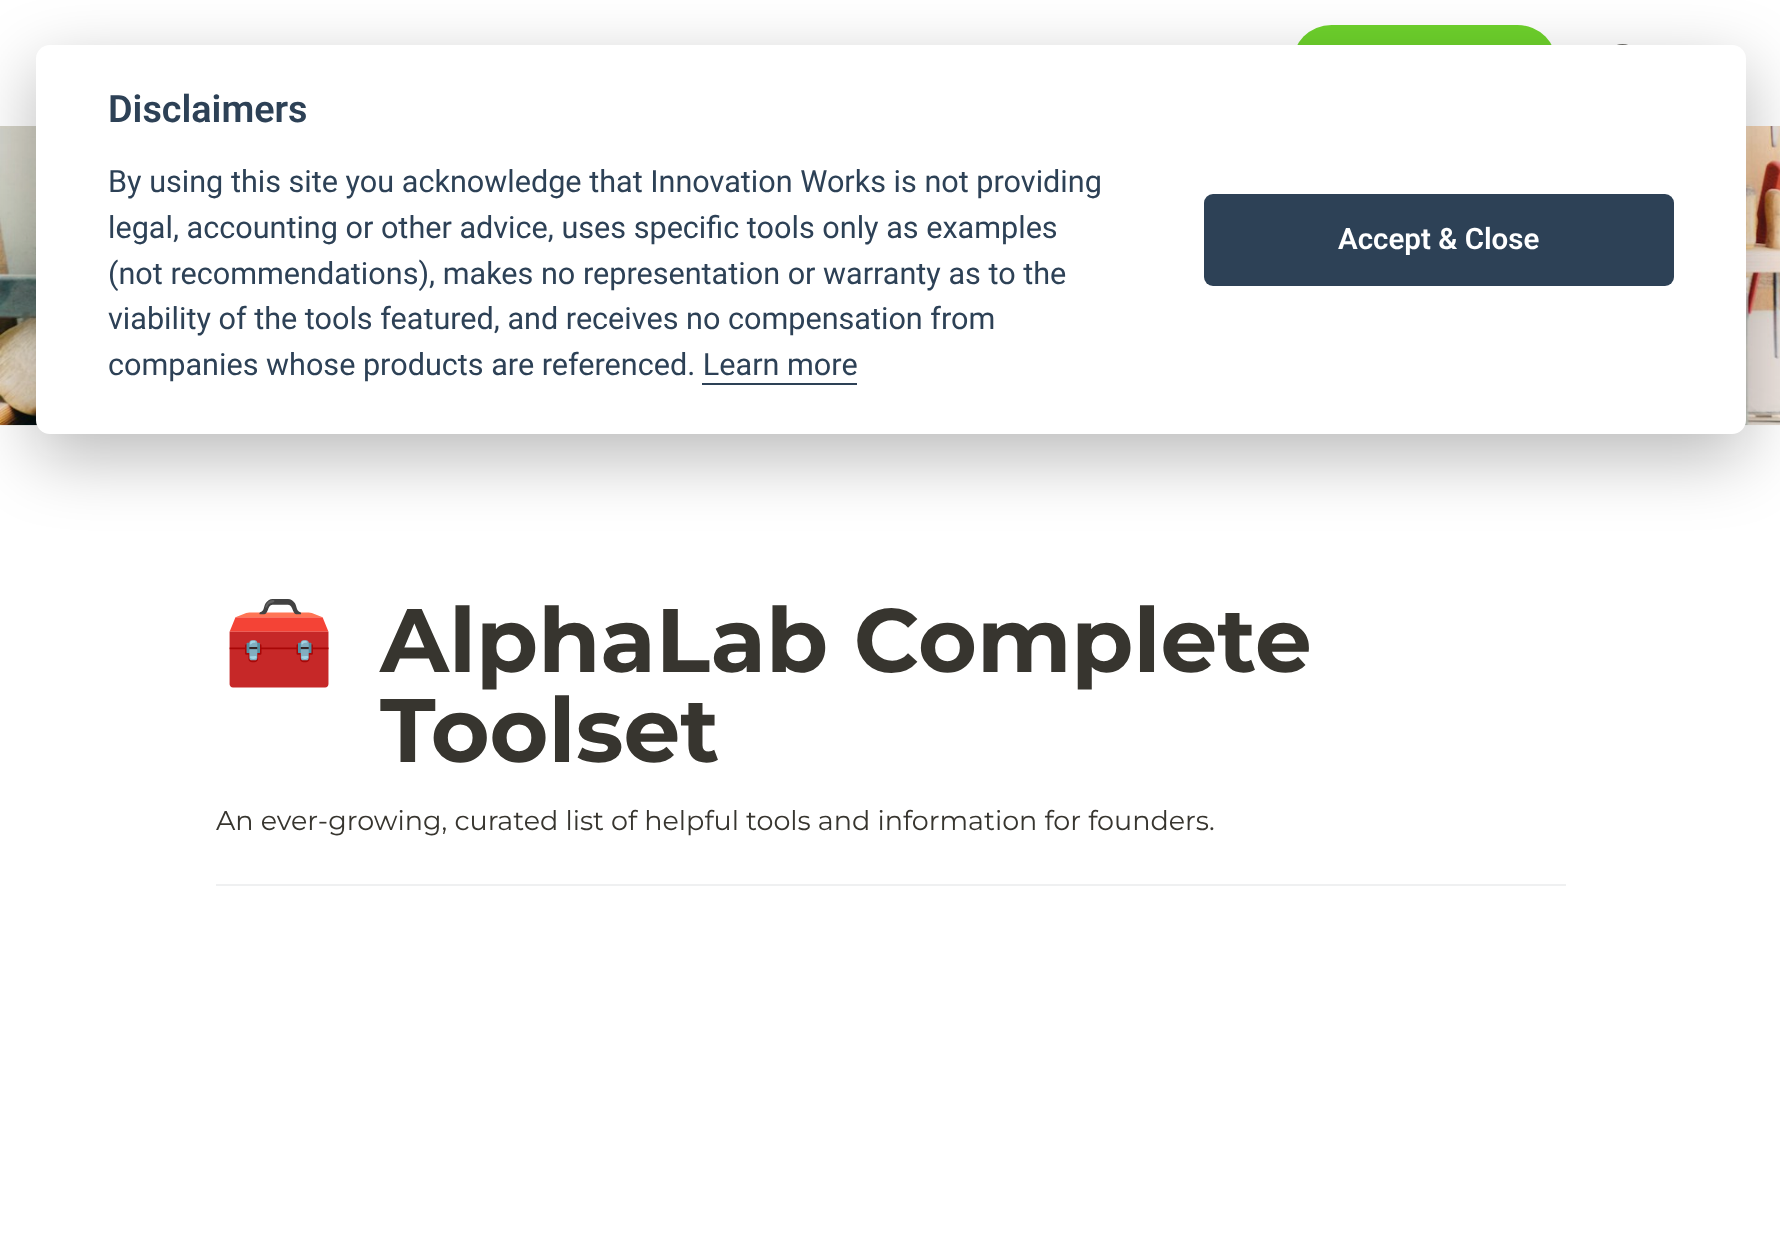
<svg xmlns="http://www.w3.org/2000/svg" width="1780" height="1244">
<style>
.a{font:600 37.75px Roboto;fill:#2d4156}
.b{font:30.6px Roboto;fill:#2d4156}
.c{font:600 29.5px Roboto;fill:#fff}
.d{font:90px Noto Color Emoji;fill:#37352f}
.e{font:bold 90px Montserrat;fill:#37352f}
.f{font:27px Montserrat;fill:#37352f}
</style>
<rect width="100%" height="100%" fill="#fff"/>
<rect fill="#6ed22c" x="1292" y="25" width="265" height="79" rx="39.5"/>
<circle fill="none" stroke="#73726d" stroke-width="3.8" cx="1622.5" cy="61" r="15"/>
<image href="1.png" x="0" y="126" width="1780" height="300"/>
<rect fill="#02020347" filter="blur(34px)" x="36" y="68" width="1710" height="389" rx="14"/>
<rect fill="#fff" x="36" y="45" width="1710" height="389" rx="14"/>
<path fill="#2d4156" d="M702 383h155v2H702z"/>
<rect fill="#2d4156" x="1204" y="194" width="470" height="92" rx="9"/>
<path fill="#eff0f1" d="M216 884h1350v2H216z"/>
<text class="a" x="108" y="122">Disclaimers</text>
<text class="b" x="108" y="192">By using this site you acknowledge that Innovation Works is not providing</text>
<text class="b" x="108" y="238">legal, accounting or other advice, uses specific tools only as examples</text>
<text class="b" x="108" y="284">(not recommendations), makes no representation or warranty as to the</text>
<text class="b" x="108" y="329">viability of the tools featured, and receives no compensation from</text>
<text class="b" x="108" y="375">companies whose products are referenced. Learn more</text>
<text class="c" x="1338" y="249">Accept &amp; Close</text>
<text class="d" x="223" y="674">🧰</text>
<text class="e" x="380" y="672">AlphaLab Complete</text>
<text class="e" x="380" y="762">Toolset</text>
<text class="f" x="216" y="830">An ever-growing, curated list of helpful tools and information for founders.</text>
</svg>
